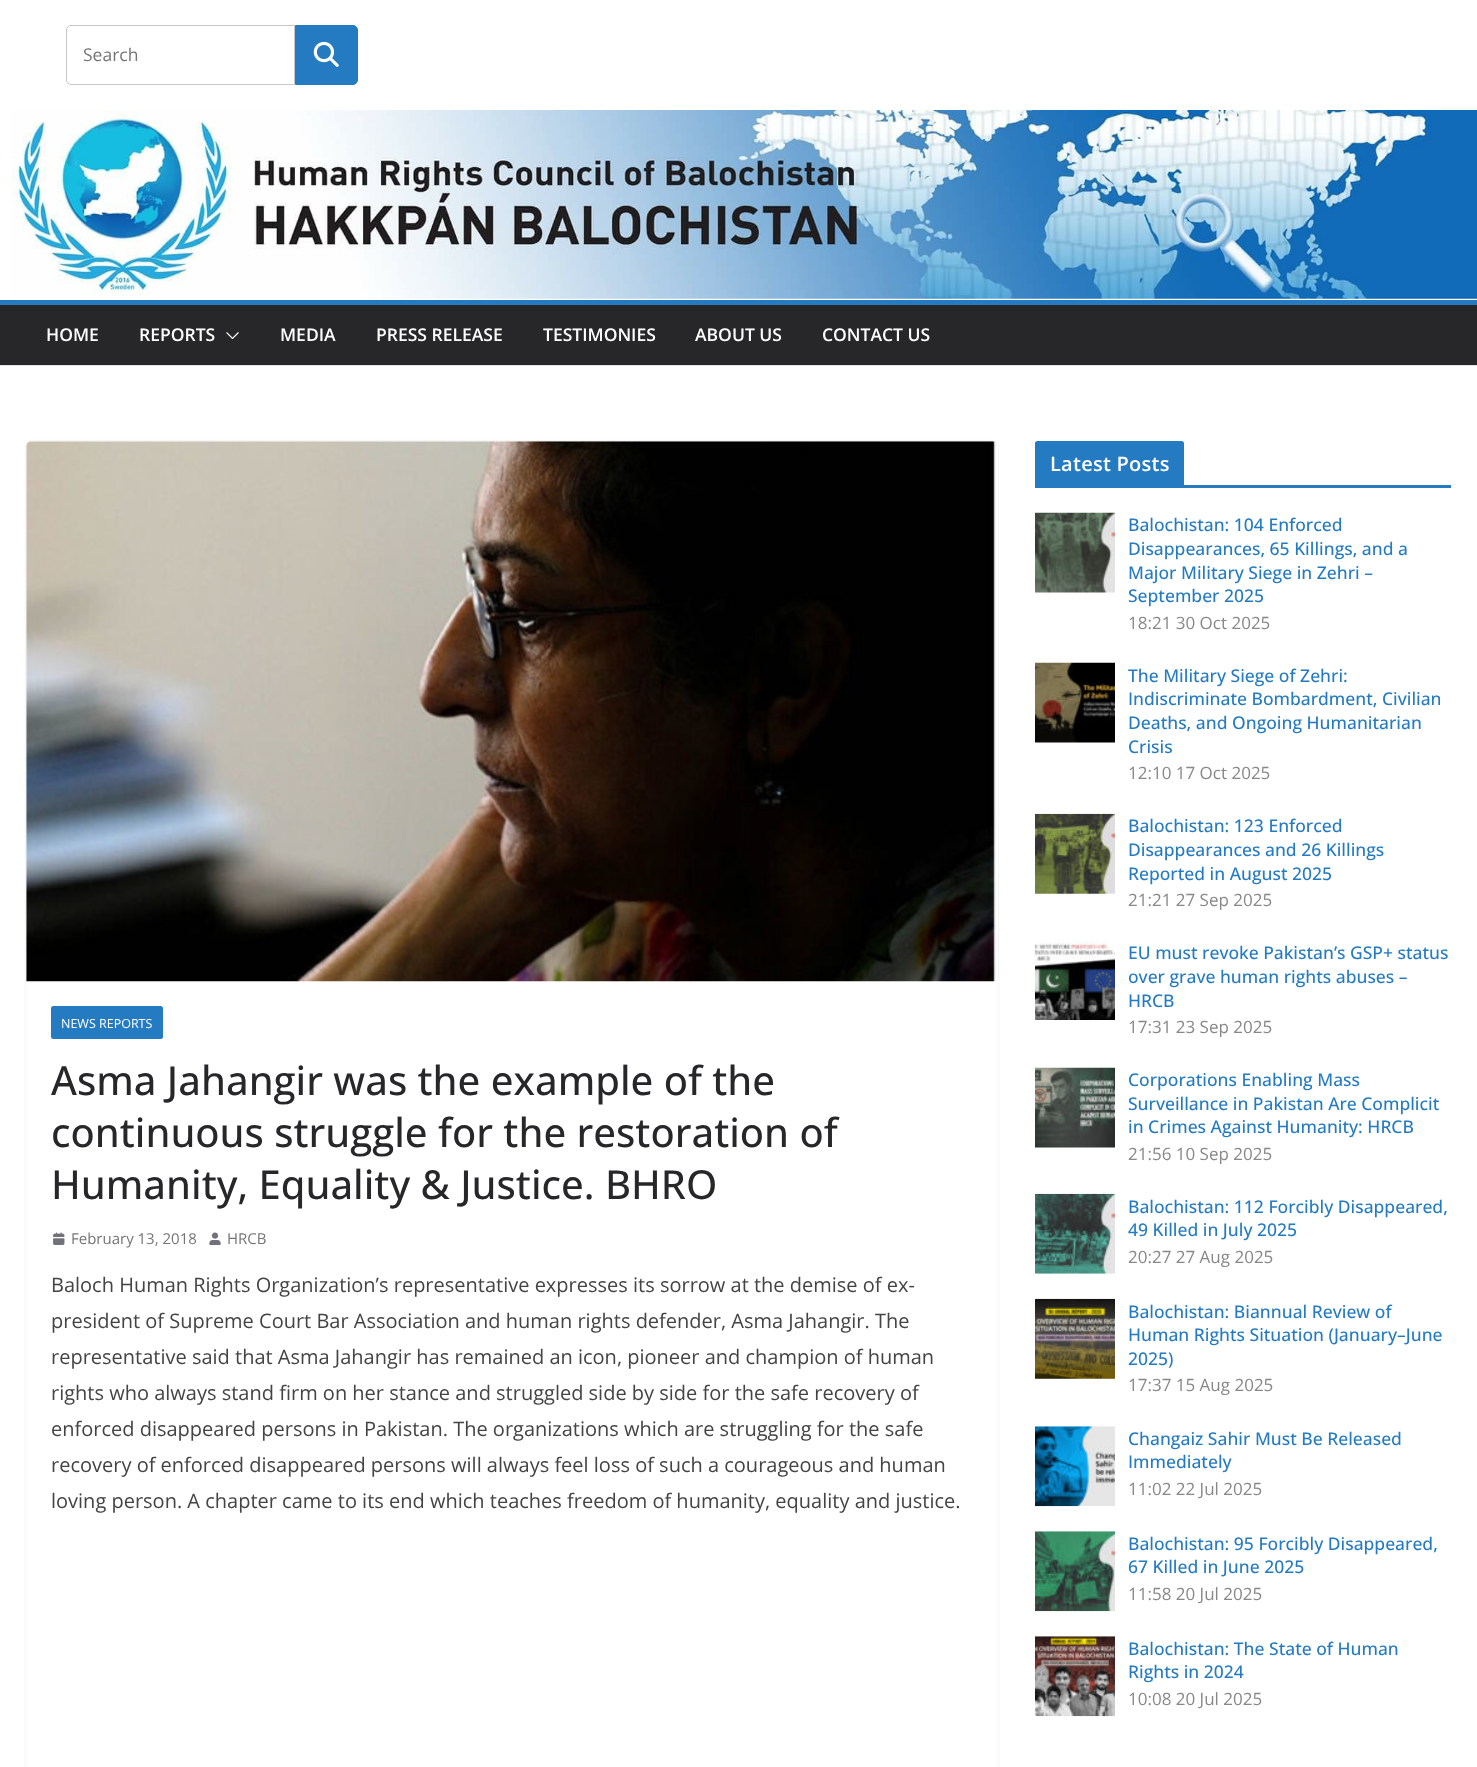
<svg xmlns="http://www.w3.org/2000/svg" width="1477" height="1767">
<style>
.a{font:17.5px Open Sans;fill:#757575}
.b{font:600 17.5px Open Sans;fill:#fff}
.c{font:12.5px Open Sans;fill:#fff}
.d{font:500 40px Open Sans;fill:#27272a}
.e{font:15px Open Sans;fill:#757575}
.f{font:20px Open Sans;fill:#444}
.g{font:600 20px Open Sans;letter-spacing:0.25px;fill:#fff}
.h{font:500 17.5px Open Sans;fill:#257bc1}
.i{font:17px Open Sans;fill:#888}
</style>
<defs>
<clipPath id="clip1"><path d="M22 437h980v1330h-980zm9 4h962c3 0 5 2 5 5v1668c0 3-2 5-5 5h-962c-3 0-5-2-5-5v-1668c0-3 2-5 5-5z" clip-rule="evenodd"/></clipPath>
</defs>
<rect width="100%" height="100%" fill="#fff"/>
<path fill="#e4e4e7" d="M0 365h1477v1H0z"/>
<path fill="none" stroke="#c7c7c7" d="M71 25.5h223.5v59h-223.5c-2.5 0-4.5-2-4.5-4.5v-50c0-2.5 2-4.5 4.5-4.5z"/>
<path fill="#257bc1" stroke="#257bc1" d="M295.5 25.5h57.5c2.5 0 4.5 2 4.5 4.5v50c0 2.5-2 4.5-4.5 4.5h-57.5z"/>
<image href="1.png" x="313" y="41" width="26" height="26"/>
<image href="2.png" x="11" y="110" width="1466" height="189"/>
<path fill="#27272a" d="M0 305h1477v60H0z"/>
<path fill="#257bc1" d="M0 300h1477v5H0z"/>
<image href="3.png" x="226" y="332" width="13" height="7"/>
<g clip-path="url(#clip1)">
<rect fill="#e4e4e7" filter="blur(1px)" x="26" y="441" width="972" height="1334" rx="5"/>
</g>
<image href="4.png" x="26" y="441" width="970" height="541"/>
<rect fill="#257bc1" x="51" y="1006" width="112" height="33" rx="2.5"/>
<image href="5.png" x="53" y="1232" width="12" height="13"/>
<image href="6.png" x="209" y="1232" width="12" height="13"/>
<path fill="#257bc1" d="M1035 485h416v3H1035z"/>
<path fill="#257bc1" d="M1037.5 441h144c1.5 0 2.5 1 2.5 2.5v41.5h-149v-41.5c0-1.5 1-2.5 2.5-2.5z"/>
<image href="7.png" x="1035" y="512" width="80" height="81"/>
<image href="8.png" x="1035" y="662" width="80" height="81"/>
<image href="9.png" x="1035" y="813" width="80" height="81"/>
<image href="10.png" x="1035" y="940" width="80" height="80"/>
<image href="11.png" x="1035" y="1067" width="80" height="81"/>
<image href="12.png" x="1035" y="1193" width="80" height="81"/>
<image href="13.png" x="1035" y="1298" width="80" height="81"/>
<image href="14.png" x="1035" y="1426" width="80" height="81"/>
<image href="15.png" x="1035" y="1531" width="80" height="81"/>
<image href="16.png" x="1035" y="1636" width="80" height="81"/>
<text class="a" x="83" y="61">Search</text>
<text class="b" x="46" y="341">HOME</text>
<text class="b" x="139" y="341">REPORTS</text>
<text class="b" x="280" y="341">MEDIA</text>
<text class="b" x="376" y="341">PRESS RELEASE</text>
<text class="b" x="543" y="341">TESTIMONIES</text>
<text class="b" x="695" y="341">ABOUT US</text>
<text class="b" x="822" y="341">CONTACT US</text>
<text class="c" x="61" y="1028">NEWS REPORTS</text>
<text class="d" x="51" y="1095">Asma Jahangir was the example of the</text>
<text class="d" x="51" y="1147">continuous struggle for the restoration of</text>
<text class="d" x="51" y="1199">Humanity, Equality &amp; Justice. BHRO</text>
<text class="e" x="71" y="1244">February 13, 2018</text>
<text class="e" x="227" y="1244">HRCB</text>
<text class="f" x="51" y="1292">Baloch Human Rights Organization’s representative expresses its sorrow at the demise of ex-</text>
<text class="f" x="51" y="1328">president of Supreme Court Bar Association and human rights defender, Asma Jahangir. The</text>
<text class="f" x="51" y="1364">representative said that Asma Jahangir has remained an icon, pioneer and champion of human</text>
<text class="f" x="51" y="1400">rights who always stand firm on her stance and struggled side by side for the safe recovery of</text>
<text class="f" x="51" y="1436">enforced disappeared persons in Pakistan. The organizations which are struggling for the safe</text>
<text class="f" x="51" y="1472">recovery of enforced disappeared persons will always feel loss of such a courageous and human</text>
<text class="f" x="51" y="1508">loving person. A chapter came to its end which teaches freedom of humanity, equality and justice.</text>
<text class="g" x="1050" y="471">Latest Posts</text>
<text class="h" x="1128" y="531">Balochistan: 104 Enforced</text>
<text class="h" x="1128" y="555">Disappearances, 65 Killings, and a</text>
<text class="h" x="1128" y="579">Major Military Siege in Zehri –</text>
<text class="h" x="1128" y="602">September 2025</text>
<text class="i" x="1128" y="629">18:21 30 Oct 2025</text>
<text class="h" x="1128" y="682">The Military Siege of Zehri:</text>
<text class="h" x="1128" y="705">Indiscriminate Bombardment, Civilian</text>
<text class="h" x="1128" y="729">Deaths, and Ongoing Humanitarian</text>
<text class="h" x="1128" y="753">Crisis</text>
<text class="i" x="1128" y="779">12:10 17 Oct 2025</text>
<text class="h" x="1128" y="832">Balochistan: 123 Enforced</text>
<text class="h" x="1128" y="856">Disappearances and 26 Killings</text>
<text class="h" x="1128" y="880">Reported in August 2025</text>
<text class="i" x="1128" y="906">21:21 27 Sep 2025</text>
<text class="h" x="1128" y="959">EU must revoke Pakistan’s GSP+ status</text>
<text class="h" x="1128" y="983">over grave human rights abuses –</text>
<text class="h" x="1128" y="1007">HRCB</text>
<text class="i" x="1128" y="1033">17:31 23 Sep 2025</text>
<text class="h" x="1128" y="1086">Corporations Enabling Mass</text>
<text class="h" x="1128" y="1110">Surveillance in Pakistan Are Complicit</text>
<text class="h" x="1128" y="1133">in Crimes Against Humanity: HRCB</text>
<text class="i" x="1128" y="1160">21:56 10 Sep 2025</text>
<text class="h" x="1128" y="1213">Balochistan: 112 Forcibly Disappeared,</text>
<text class="h" x="1128" y="1236">49 Killed in July 2025</text>
<text class="i" x="1128" y="1263">20:27 27 Aug 2025</text>
<text class="h" x="1128" y="1318">Balochistan: Biannual Review of</text>
<text class="h" x="1128" y="1341">Human Rights Situation (January–June</text>
<text class="h" x="1128" y="1365">2025)</text>
<text class="i" x="1128" y="1391">17:37 15 Aug 2025</text>
<text class="h" x="1128" y="1445">Changaiz Sahir Must Be Released</text>
<text class="h" x="1128" y="1468">Immediately</text>
<text class="i" x="1128" y="1495">11:02 22 Jul 2025</text>
<text class="h" x="1128" y="1550">Balochistan: 95 Forcibly Disappeared,</text>
<text class="h" x="1128" y="1573">67 Killed in June 2025</text>
<text class="i" x="1128" y="1600">11:58 20 Jul 2025</text>
<text class="h" x="1128" y="1655">Balochistan: The State of Human</text>
<text class="h" x="1128" y="1678">Rights in 2024</text>
<text class="i" x="1128" y="1705">10:08 20 Jul 2025</text>
</svg>
